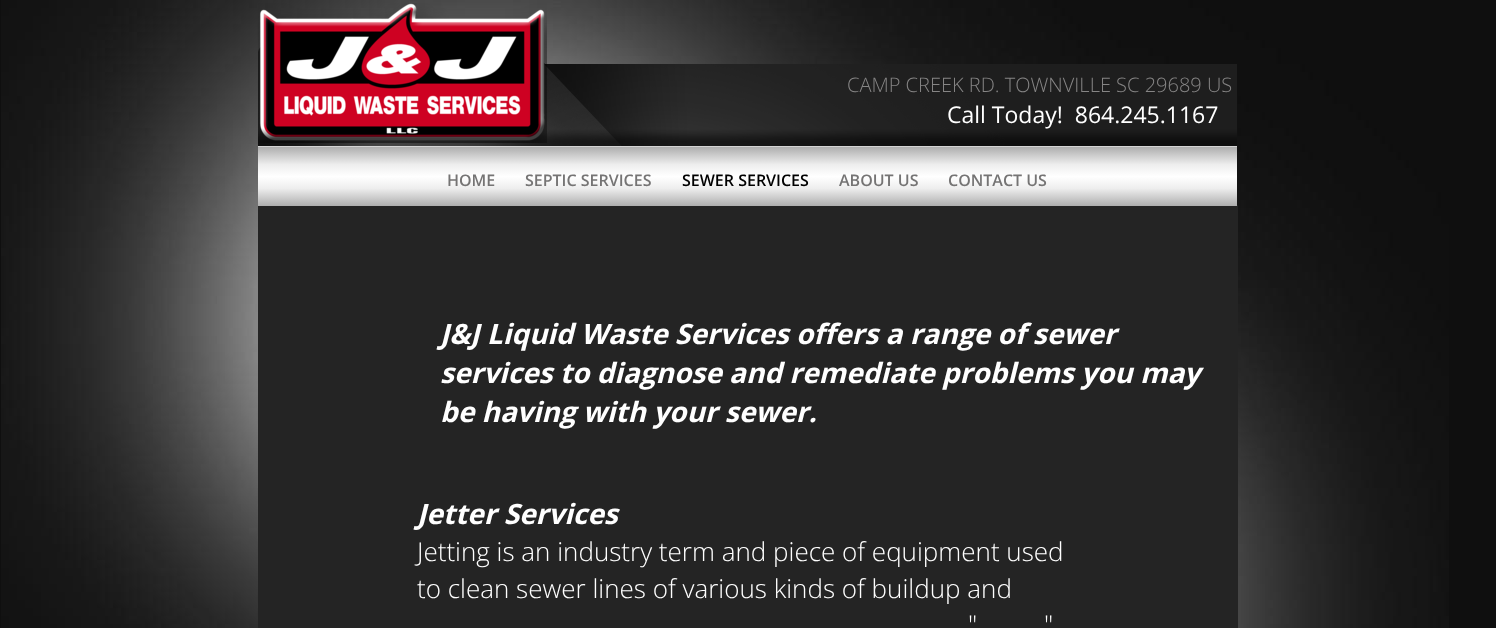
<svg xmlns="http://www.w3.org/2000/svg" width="1496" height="628">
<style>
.a{font:300 20px Open Sans;fill:#868585}
.b{font:23px Open Sans;fill:#fff}
.c{font:600 16px Open Sans;fill:#757474}
.d{font:600 16px Open Sans;fill:#000}
.e{font:italic bold 28px Open Sans;fill:#fff}
.f{font:300 26px Open Sans;fill:#fff}
</style>
<defs>
<linearGradient id="g1" gradientUnits="userSpaceOnUse" x1="748" y1="147" x2="748" y2="206"><stop offset="0" stop-color="#aeaeae"/><stop offset="0.3" stop-color="#eee"/><stop offset="0.5" stop-color="#fff"/><stop offset="0.7" stop-color="#eee"/><stop offset="1" stop-color="#aeaeae"/></linearGradient>
</defs>
<rect width="100%" height="100%" fill="#0f0f0f"/>
<image href="1.png" x="1" y="0" width="1448" height="628"/>
<path fill="#242424" d="M258 205h980v423H258z"/>
<image href="3.png" x="258" y="47" width="979" height="99"/>
<image href="2.png" x="258" y="3" width="289" height="140"/>
<path fill="url(#g1)" d="M258 147h979v59H258z"/>
<path fill="#d4d4d4" d="M258 146h979v1H258z"/>
<text class="a" x="847" y="92">CAMP CREEK RD. TOWNVILLE SC 29689 US</text>
<text class="b" xml:space="preserve" x="947" y="123">Call Today!  864.245.1167</text>
<text class="c" x="447" y="186">HOME</text>
<text class="c" x="525" y="186">SEPTIC SERVICES</text>
<text class="d" x="682" y="186">SEWER SERVICES</text>
<text class="c" x="839" y="186">ABOUT US</text>
<text class="c" x="948" y="186">CONTACT US</text>
<text class="e" x="440" y="344">J&amp;J Liquid Waste Services offers a range of sewer</text>
<text class="e" x="440" y="383">services to diagnose and remediate problems you may</text>
<text class="e" x="440" y="422">be having with your sewer.</text>
<text class="e" x="417" y="524">Jetter Services</text>
<text class="f" x="417" y="561">Jetting is an industry term and piece of equipment used</text>
<text class="f" x="417" y="598">to clean sewer lines of various kinds of buildup and</text>
<text class="f" x="968" y="634">"</text>
<text class="f" x="1044" y="634">"</text>
</svg>
